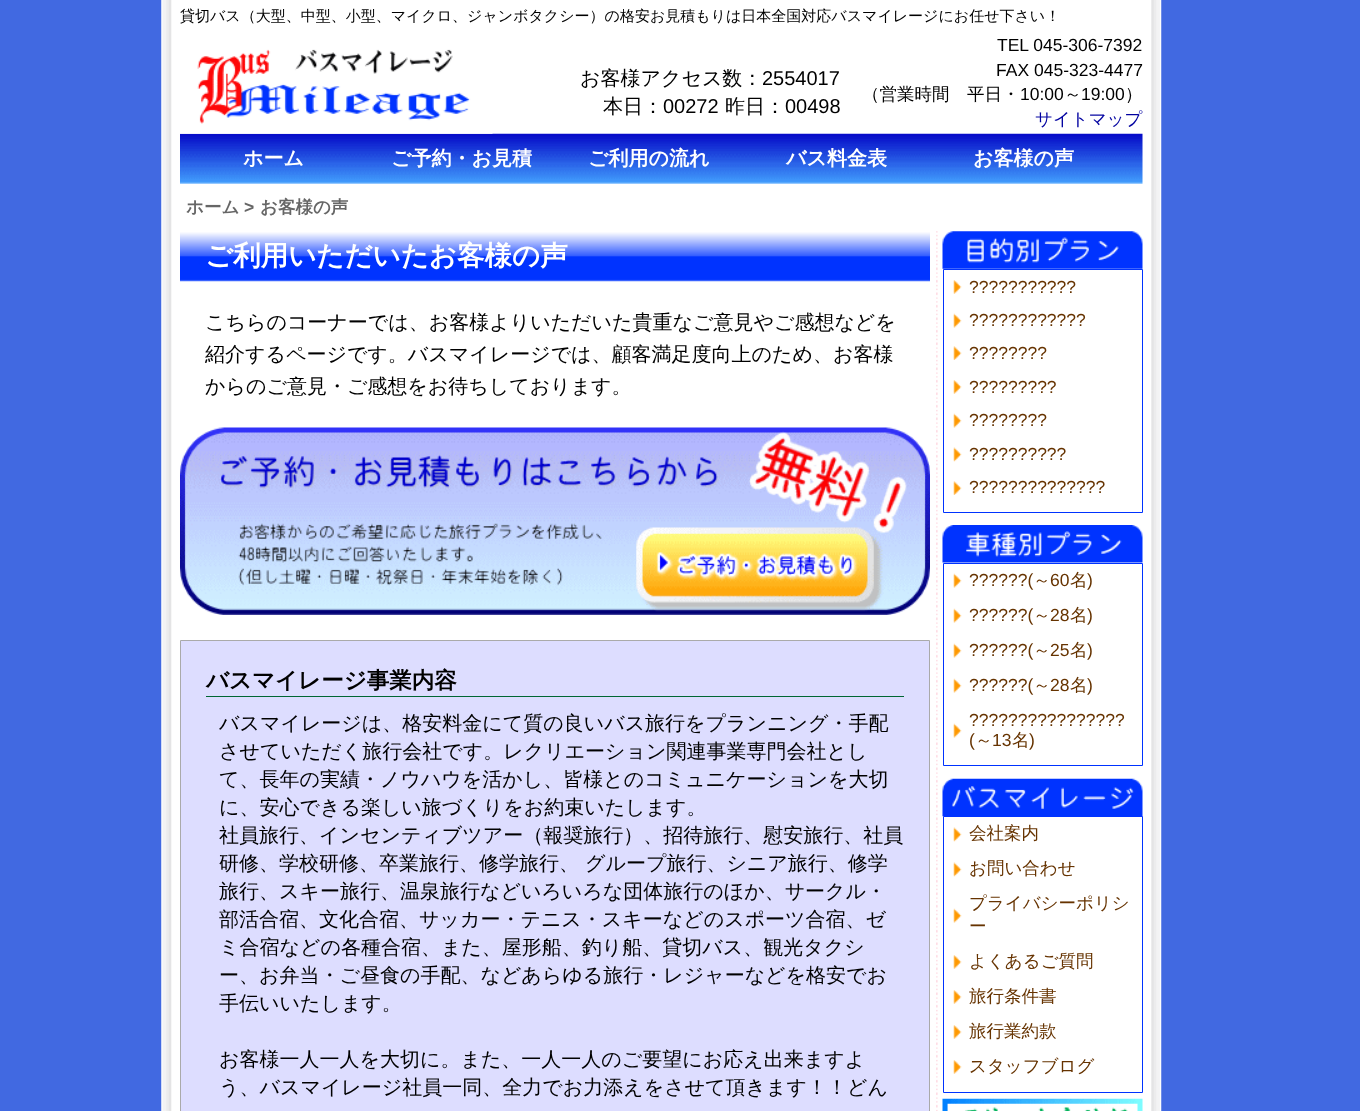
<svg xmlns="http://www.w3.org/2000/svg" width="1360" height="1111">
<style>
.a{font:500 15px WenQuanYi Zen Hei;fill:#000}
.b{font:500 20px WenQuanYi Zen Hei;fill:#000}
.c{font:20px Liberation Sans;fill:#000}
.d{font:17.5px Liberation Sans;fill:#000}
.e{font:500 17.5px WenQuanYi Zen Hei;fill:#000}
.f{font:500 17.5px WenQuanYi Zen Hei;fill:#0000a0}
.g{font:bold 20px WenQuanYi Zen Hei;fill:#fff}
.h{font:bold 17.5px WenQuanYi Zen Hei;fill:#666}
.i{font:bold 17.5px Liberation Sans;fill:#666}
.j{font:bold 27.5px WenQuanYi Zen Hei;fill:#fff}
.k{font:bold 22.5px WenQuanYi Zen Hei;fill:#000}
.l{font:17.5px Liberation Sans;fill:#630}
.m{font:500 17.5px WenQuanYi Zen Hei;fill:#630}
</style>
<rect width="100%" height="100%" fill="#4169e1"/>
<image href="1.png" x="161" y="0" width="1001" height="1111"/>
<image href="3.png" x="180" y="133" width="963" height="51"/>
<image href="2.png" x="180" y="49" width="313" height="85"/>
<image href="4.png" x="936" y="231" width="2" height="880"/>
<image href="5.png" x="180" y="232" width="750" height="50"/>
<image href="6.png" x="180" y="427" width="750" height="188"/>
<path fill="#ddf" stroke="#aaa" d="M180.5 640.5h749v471H180.5z"/>
<path fill="#063" d="M206 696h698v1H206z"/>
<image href="7.png" x="942" y="231" width="201" height="38"/>
<path fill="none" stroke="#03f" d="M943.5 269.5h199v243H943.5z"/>
<image href="8.png" x="953" y="280" width="9" height="14"/>
<image href="9.png" x="953" y="313" width="9" height="15"/>
<image href="10.png" x="953" y="346" width="9" height="14"/>
<image href="8.png" x="953" y="380" width="9" height="14"/>
<image href="9.png" x="953" y="413" width="9" height="15"/>
<image href="11.png" x="953" y="447" width="9" height="15"/>
<image href="10.png" x="953" y="481" width="9" height="14"/>
<image href="12.png" x="942" y="525" width="201" height="38"/>
<path fill="none" stroke="#03f" d="M943.5 563.5h199v202H943.5z"/>
<image href="9.png" x="953" y="573" width="9" height="15"/>
<image href="9.png" x="953" y="608" width="9" height="15"/>
<image href="9.png" x="953" y="643" width="9" height="15"/>
<image href="9.png" x="953" y="678" width="9" height="15"/>
<image href="9.png" x="953" y="723" width="9" height="15"/>
<path fill="none" stroke="#03f" d="M943.5 816.5h199v276H943.5z"/>
<image href="13.png" x="942" y="778" width="201" height="39"/>
<image href="11.png" x="953" y="827" width="9" height="15"/>
<image href="11.png" x="953" y="862" width="9" height="15"/>
<image href="9.png" x="953" y="908" width="9" height="15"/>
<image href="8.png" x="953" y="955" width="9" height="14"/>
<image href="8.png" x="953" y="990" width="9" height="14"/>
<image href="14.png" x="953" y="1025" width="9" height="14"/>
<image href="8.png" x="953" y="1060" width="9" height="14"/>
<image href="15.png" x="942" y="1098" width="201" height="13"/>
<text class="a" x="180" y="21">貸切バス（大型、中型、小型、マイクロ、ジャンボタクシー）の格安お見積もりは日本全国対応バスマイレージにお任せ下さい！</text>
<text class="b" x="580" y="85">お客様アクセス数：</text>
<text class="c" x="762" y="85">2554017</text>
<text class="b" x="603" y="113">本日：</text>
<text class="c" x="663" y="113">00272</text>
<text class="b" x="725" y="113">昨日：</text>
<text class="c" x="785" y="113">00498</text>
<text class="d" x="997" y="51">TEL 045-306-7392</text>
<text class="d" x="996" y="76">FAX 045-323-4477</text>
<text class="e" x="862" y="100">（営業時間　平日・</text>
<text class="d" x="1020" y="100">10:00</text>
<text class="e" x="1064" y="100">～</text>
<text class="d" x="1081" y="100">19:00</text>
<text class="e" x="1125" y="100">）</text>
<text class="f" x="1035" y="125">サイトマップ</text>
<text class="g" x="243" y="165">ホーム</text>
<text class="g" x="391" y="165">ご予約・お見積</text>
<text class="g" x="588" y="165">ご利用の流れ</text>
<text class="g" x="786" y="165">バス料金表</text>
<text class="g" x="973" y="165">お客様の声</text>
<text class="h" x="186" y="213">ホーム</text>
<text class="i" x="244" y="213">&gt;</text>
<text class="h" x="260" y="213">お客様の声</text>
<text class="j" x="205" y="265">ご利用いただいたお客様の声</text>
<text class="b" x="205" y="329">こちらのコーナーでは、お客様よりいただいた貴重なご意見やご感想などを</text>
<text class="b" x="205" y="361">紹介するページです。バスマイレージでは、顧客満足度向上のため、お客様</text>
<text class="b" x="205" y="393">からのご意見・ご感想をお待ちしております。</text>
<text class="k" x="206" y="688">バスマイレージ事業内容</text>
<text class="b" x="219" y="730">バスマイレージは、格安料金にて質の良いバス旅行をプランニング・手配</text>
<text class="b" x="219" y="758">させていただく旅行会社です。レクリエーション関連事業専門会社とし</text>
<text class="b" x="219" y="786">て、長年の実績・ノウハウを活かし、皆様とのコミュニケーションを大切</text>
<text class="b" x="219" y="814">に、安心できる楽しい旅づくりをお約束いたします。</text>
<text class="b" x="219" y="842">社員旅行、インセンティブツアー（報奨旅行）、招待旅行、慰安旅行、社員</text>
<text class="b" x="219" y="870">研修、学校研修、卒業旅行、修学旅行、 グループ旅行、シニア旅行、修学</text>
<text class="b" x="219" y="898">旅行、スキー旅行、温泉旅行などいろいろな団体旅行のほか、サークル・</text>
<text class="b" x="219" y="926">部活合宿、文化合宿、サッカー・テニス・スキーなどのスポーツ合宿、ゼ</text>
<text class="b" x="219" y="954">ミ合宿などの各種合宿、また、屋形船、釣り船、貸切バス、観光タクシ</text>
<text class="b" x="219" y="982">ー、お弁当・ご昼食の手配、などあらゆる旅行・レジャーなどを格安でお</text>
<text class="b" x="219" y="1010">手伝いいたします。</text>
<text class="b" x="219" y="1066">お客様一人一人を大切に。また、一人一人のご要望にお応え出来ますよ</text>
<text class="b" x="219" y="1094">う、バスマイレージ社員一同、全力でお力添えをさせて頂きます！！どん</text>
<text class="l" x="969" y="293">???????????</text>
<text class="l" x="969" y="326">????????????</text>
<text class="l" x="969" y="359">????????</text>
<text class="l" x="969" y="393">?????????</text>
<text class="l" x="969" y="426">????????</text>
<text class="l" x="969" y="460">??????????</text>
<text class="l" x="969" y="493">??????????????</text>
<text class="l" x="969" y="586">??????(</text>
<text class="m" x="1033" y="586">～</text>
<text class="l" x="1050" y="586">60</text>
<text class="m" x="1070" y="586">名</text>
<text class="l" x="1087" y="586">)</text>
<text class="l" x="969" y="621">??????(</text>
<text class="m" x="1033" y="621">～</text>
<text class="l" x="1050" y="621">28</text>
<text class="m" x="1070" y="621">名</text>
<text class="l" x="1087" y="621">)</text>
<text class="l" x="969" y="656">??????(</text>
<text class="m" x="1033" y="656">～</text>
<text class="l" x="1050" y="656">25</text>
<text class="m" x="1070" y="656">名</text>
<text class="l" x="1087" y="656">)</text>
<text class="l" x="969" y="691">??????(</text>
<text class="m" x="1033" y="691">～</text>
<text class="l" x="1050" y="691">28</text>
<text class="m" x="1070" y="691">名</text>
<text class="l" x="1087" y="691">)</text>
<text class="l" x="969" y="726">????????????????</text>
<text class="l" x="969" y="746">(</text>
<text class="m" x="975" y="746">～</text>
<text class="l" x="992" y="746">13</text>
<text class="m" x="1012" y="746">名</text>
<text class="l" x="1029" y="746">)</text>
<text class="m" x="969" y="839">会社案内</text>
<text class="m" x="969" y="874">お問い合わせ</text>
<text class="m" x="969" y="909">プライバシーポリシ</text>
<text class="m" x="969" y="932">ー</text>
<text class="m" x="969" y="967">よくあるご質問</text>
<text class="m" x="969" y="1002">旅行条件書</text>
<text class="m" x="969" y="1037">旅行業約款</text>
<text class="m" x="969" y="1072">スタッフブログ</text>
</svg>
